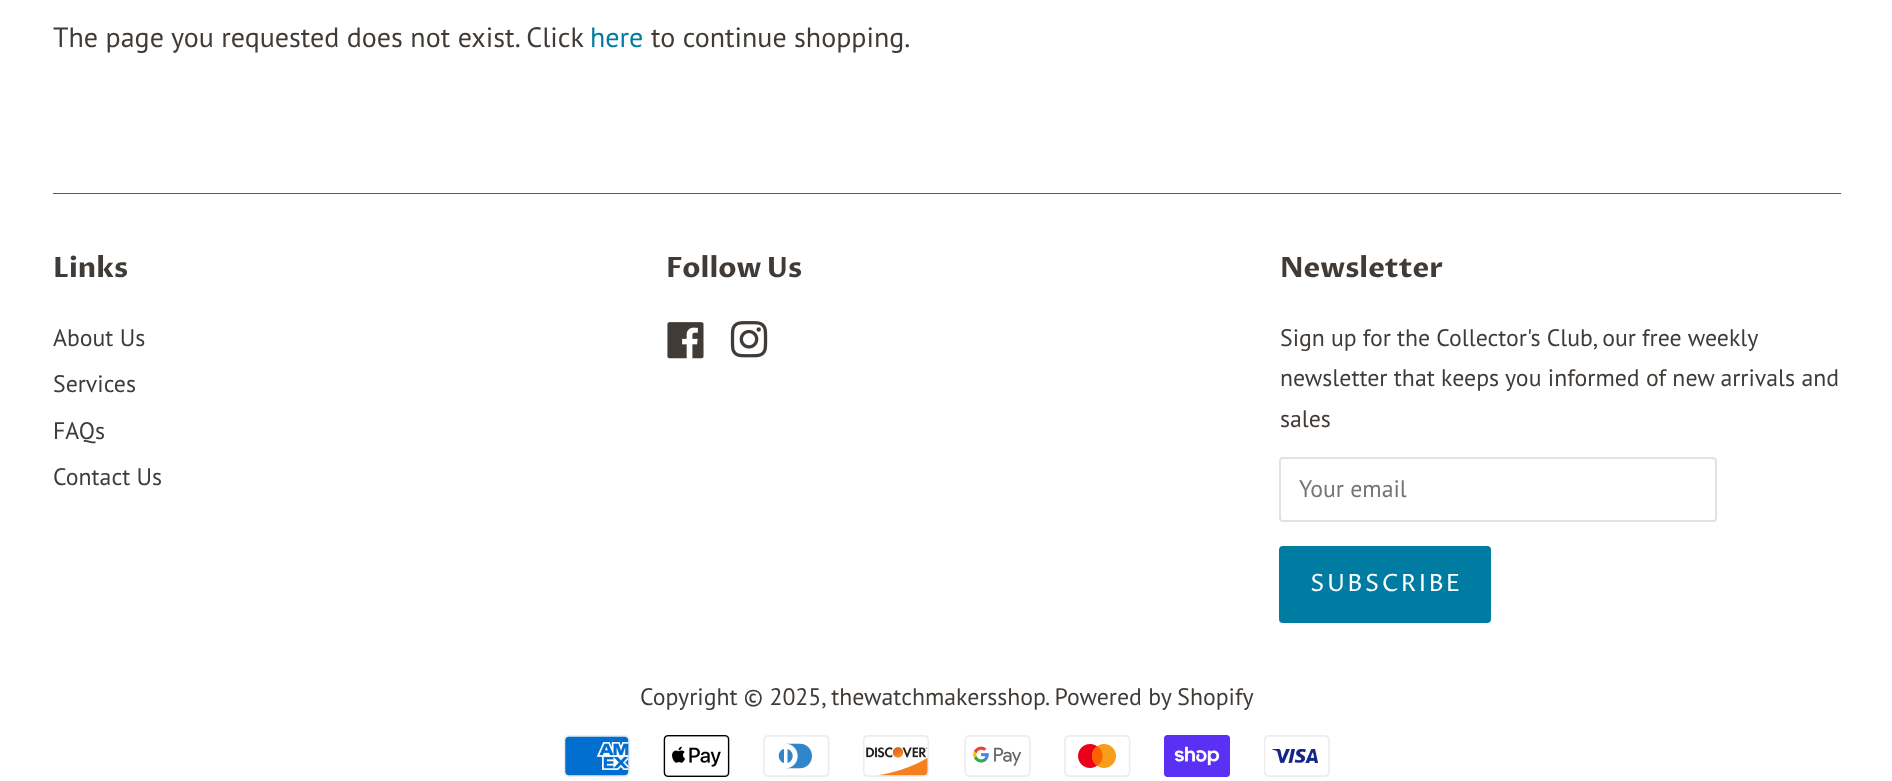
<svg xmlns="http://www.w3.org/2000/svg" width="1892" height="781">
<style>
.a{font:28px PT Sans;fill:#403b37}
.b{font:28px PT Sans;fill:#007ca2}
.c{font:bold 28px Proza Libre;fill:#403b37}
.d{font:23.8px PT Sans;fill:#403b37}
.e{font:23.8px PT Sans;fill:#757575}
.f{font:23.8px Proza Libre;letter-spacing:2.4px;fill:#fff}
</style>
<rect width="100%" height="100%" fill="#fff"/>
<path fill="#007ca2" d="M53 193h1788v1H53z"/>
<image href="1.png" x="667" y="322" width="37" height="37"/>
<image href="2.png" x="730" y="321" width="38" height="37"/>
<rect fill="none" stroke="#e2e2e1" stroke-width="2" x="1280" y="458" width="436" height="63" rx="3"/>
<rect fill="#007ca2" x="1279" y="546" width="212" height="77" rx="4"/>
<image href="3.png" x="564" y="735" width="66" height="42"/>
<image href="4.png" x="663" y="735" width="67" height="42"/>
<image href="5.png" x="763" y="735" width="67" height="42"/>
<image href="6.png" x="863" y="735" width="66" height="42"/>
<image href="7.png" x="964" y="735" width="67" height="42"/>
<image href="8.png" x="1064" y="735" width="67" height="42"/>
<image href="9.png" x="1164" y="735" width="66" height="42"/>
<image href="10.png" x="1264" y="735" width="66" height="42"/>
<text class="a" x="53" y="47">The page you requested does not exist. Click</text>
<text class="b" x="590" y="47">here</text>
<text class="a" x="651" y="47">to continue shopping.</text>
<text class="c" x="53" y="277">Links</text>
<text class="d" x="53" y="346">About Us</text>
<text class="d" x="53" y="392">Services</text>
<text class="d" x="53" y="439">FAQs</text>
<text class="d" x="53" y="485">Contact Us</text>
<text class="c" x="666" y="277">Follow Us</text>
<text class="c" x="1280" y="277">Newsletter</text>
<text class="d" x="1280" y="346" word-spacing="-0.25">Sign up for the Collector's Club, our free weekly</text>
<text class="d" x="1280" y="386">newsletter that keeps you informed of new arrivals and</text>
<text class="d" x="1280" y="427">sales</text>
<text class="e" x="1299" y="497">Your email</text>
<text class="f" x="1310" y="591">SUBSCRIBE</text>
<text class="d" x="640" y="705">Copyright © 2025, thewatchmakersshop</text>
<text class="d" x="1045" y="705">. Powered by Shopify</text>
</svg>
